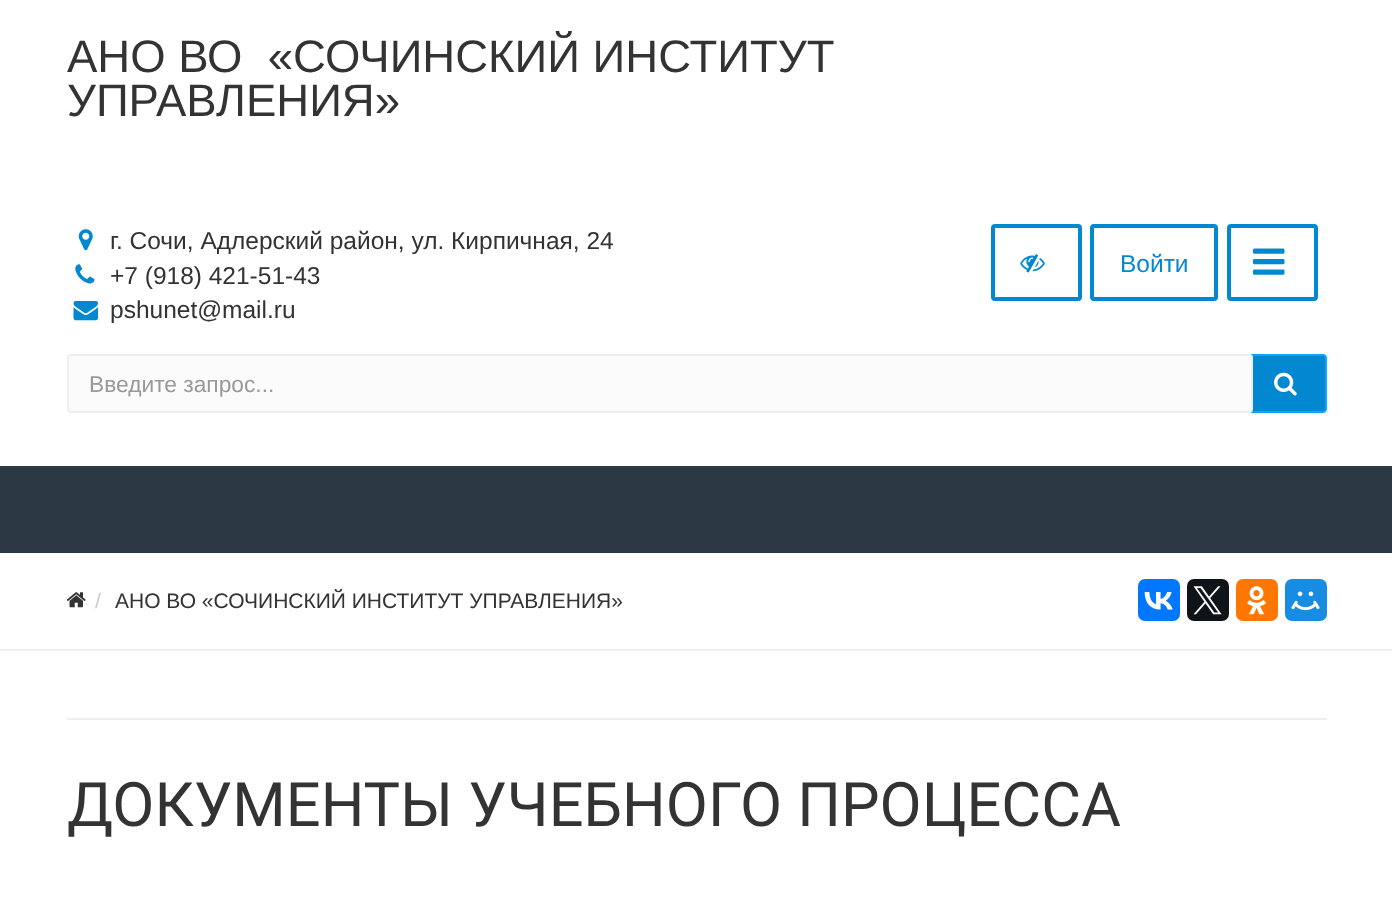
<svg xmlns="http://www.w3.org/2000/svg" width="1392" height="922">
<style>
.a{font:45.5px Liberation Sans;fill:#333}
.b{font:24.5px Liberation Sans;fill:#333}
.c{font:24.5px Liberation Sans;fill:#0288d1}
.d{font:22.75px Liberation Sans;fill:#999}
.e{font:21px Liberation Sans;fill:#ccc}
.f{font:21px Liberation Sans;fill:#333}
.g{font:61.25px Roboto;fill:#333}
</style>
<rect width="100%" height="100%" fill="#fff"/>
<image href="1.png" x="78" y="229" width="15" height="22"/>
<image href="2.png" x="75" y="264" width="20" height="20"/>
<image href="3.png" x="73" y="301" width="25" height="20"/>
<rect fill="none" stroke="#0288d1" stroke-width="4" x="993" y="226" width="87" height="73" rx="2"/>
<image href="4.png" x="1020" y="254" width="25" height="19"/>
<rect fill="none" stroke="#0288d1" stroke-width="4" x="1092" y="226" width="124" height="73" rx="2"/>
<rect fill="none" stroke="#0288d1" stroke-width="4" x="1229" y="226" width="87" height="73" rx="2"/>
<image href="5.png" x="1253" y="248" width="32" height="27"/>
<path fill="#0288d1" stroke="#09a7fd" stroke-width="2" d="M1252 355h71c1.5 0 3 1.5 3 3v51c0 1.5-1.5 3-3 3h-71z"/>
<rect fill="#fbfbfb" stroke="#eee" stroke-width="2" x="68" y="355" width="1184" height="57" rx="3"/>
<image href="6.png" x="1274" y="372" width="23" height="24"/>
<path fill="#2c3944" d="M0 466h1392v87H0z"/>
<path fill="#eee" d="M0 649h1392v2H0z"/>
<image href="7.png" x="66" y="592" width="20" height="16"/>
<rect fill="#07f" x="1138" y="579" width="42" height="42" rx="7"/>
<image href="8.png" x="1144" y="592" width="29" height="18"/>
<rect fill="#0f1419" x="1187" y="579" width="42" height="42" rx="7"/>
<image href="9.png" x="1193" y="586" width="29" height="29"/>
<rect fill="#f70" x="1236" y="579" width="42" height="42" rx="7"/>
<image href="10.png" x="1247" y="586" width="19" height="29"/>
<rect fill="#168de2" x="1285" y="579" width="42" height="42" rx="7"/>
<image href="11.png" x="1291" y="591" width="29" height="20"/>
<path fill="#eee" d="M67 718h1260v2H67z"/>
<text class="a" xml:space="preserve" x="67" y="72">АНО ВО  «СОЧИНСКИЙ ИНСТИТУТ</text>
<text class="a" x="67" y="116">УПРАВЛЕНИЯ»</text>
<text class="b" x="110" y="249">г. Сочи, Адлерский район, ул. Кирпичная, 24</text>
<text class="b" x="110" y="284">+7 (918) 421-51-43</text>
<text class="b" x="110" y="318">pshunet@mail.ru</text>
<text class="c" x="1120" y="272">Войти</text>
<text class="d" x="89" y="392">Введите запрос...</text>
<text class="e" x="95" y="608">/</text>
<text class="f" x="115" y="608">АНО ВО «СОЧИНСКИЙ ИНСТИТУТ УПРАВЛЕНИЯ»</text>
<text class="g" x="67" y="826">ДОКУМЕНТЫ УЧЕБНОГО ПРОЦЕССА</text>
</svg>
